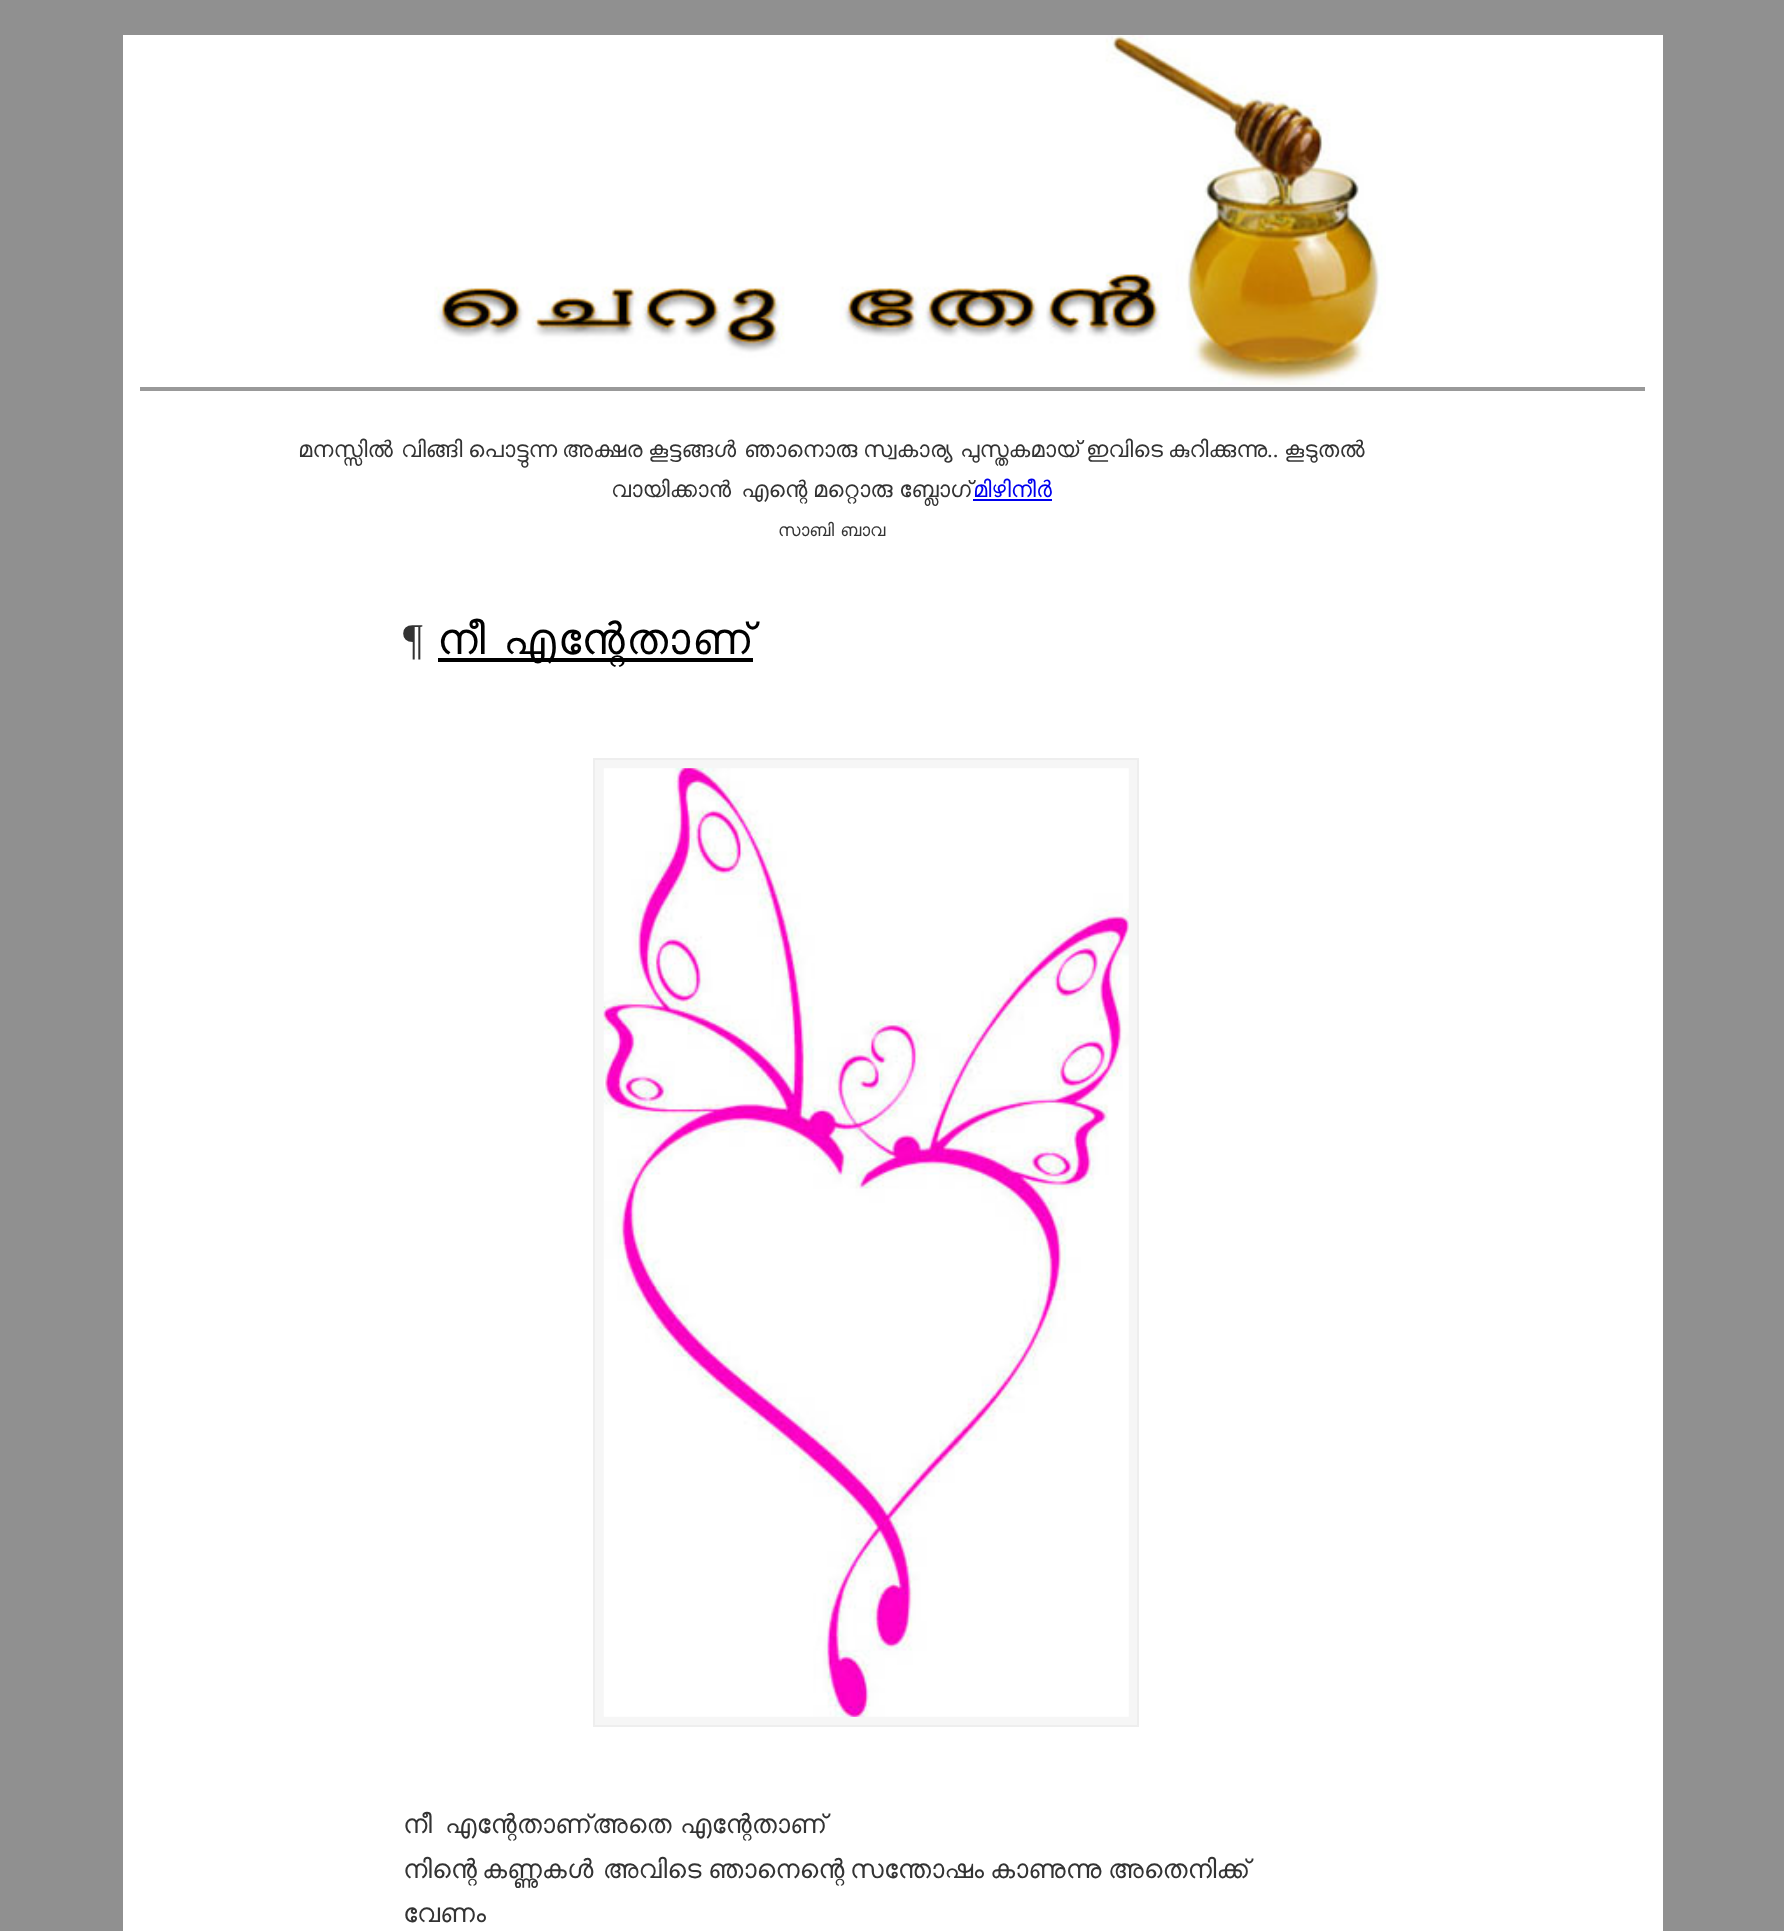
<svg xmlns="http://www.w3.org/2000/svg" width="1784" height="1931">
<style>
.a{font:22.75px FreeSans;fill:#333}
.b{font:22.75px Liberation Serif;fill:#333}
.c{font:22.75px FreeSans;fill:#00e}
.d{font:17.5px FreeSans;fill:#333}
.e{font:43.75px Liberation Serif;letter-spacing:1.75px;fill:#333}
.f{font:43.75px FreeSans;letter-spacing:1.75px;fill:#000}
.g{font:26.25px FreeSans;fill:#333}
</style>
<rect width="100%" height="100%" fill="#909090"/>
<path fill="#fff" d="M123 35h1540v1896H123z"/>
<path fill="#999" d="M140 387h1505v4H140z"/>
<image href="1.png" x="434" y="35" width="952" height="350"/>
<path fill="#00e" d="M973 499h79v2H973z"/>
<path fill="#000" d="M438 658h315v4H438z"/>
<path fill="#f6f6f6" stroke="#eee" stroke-width="2" d="M594 759h544v967H594z"/>
<image href="2.png" x="603" y="768" width="526" height="949"/>
<text class="a" x="298" y="457" word-spacing="-1">മനസ്സില്‍ വിങ്ങി</text>
<text class="a" x="468" y="457">പൊട്ടുന്ന</text>
<text class="a" x="562" y="457">അക്ഷര</text>
<text class="a" x="648" y="457" word-spacing="-1">കൂട്ടങ്ങള്‍ ഞാനൊരു</text>
<text class="a" x="863" y="457">സ്വകാര്യ</text>
<text class="a" x="960" y="457">പുസ്തകമായ്</text>
<text class="a" x="1086" y="457">ഇവിടെ</text>
<text class="a" x="1168" y="457">കുറിക്കുന്നു</text>
<text class="b" x="1267" y="457">..</text>
<text class="a" x="1284" y="457">കൂടുതല്‍</text>
<text class="a" x="611" y="497" word-spacing="1">വായിക്കാന്‍ എന്റെ</text>
<text class="a" x="813" y="497">മറ്റൊരു</text>
<text class="a" x="899" y="497">ബ്ലോഗ്</text>
<text class="c" x="973" y="497">മിഴിനീര്‍</text>
<text class="d" x="778" y="536" word-spacing="-1">സാബി ബാവ</text>
<text class="e" x="403" y="654">¶</text>
<text class="f" x="437" y="654" word-spacing="-3">നീ എന്റേതാണ്</text>
<text class="g" x="403" y="1833">നീ</text>
<text class="g" x="445" y="1833">എന്റേതാണ്</text>
<text class="g" x="592" y="1833" word-spacing="-2">അതെ എന്റേതാണ്</text>
<text class="g" x="403" y="1878">നിന്റെ</text>
<text class="g" x="482" y="1878" word-spacing="-1">കണ്ണുകള്‍ അവിടെ</text>
<text class="g" x="708" y="1878">ഞാനെന്റെ</text>
<text class="g" x="850" y="1878">സന്തോഷം</text>
<text class="g" x="990" y="1878">കാണുന്നു</text>
<text class="g" x="1108" y="1878">അതെനിക്ക്</text>
<text class="g" x="403" y="1922">വേണം</text>
</svg>
